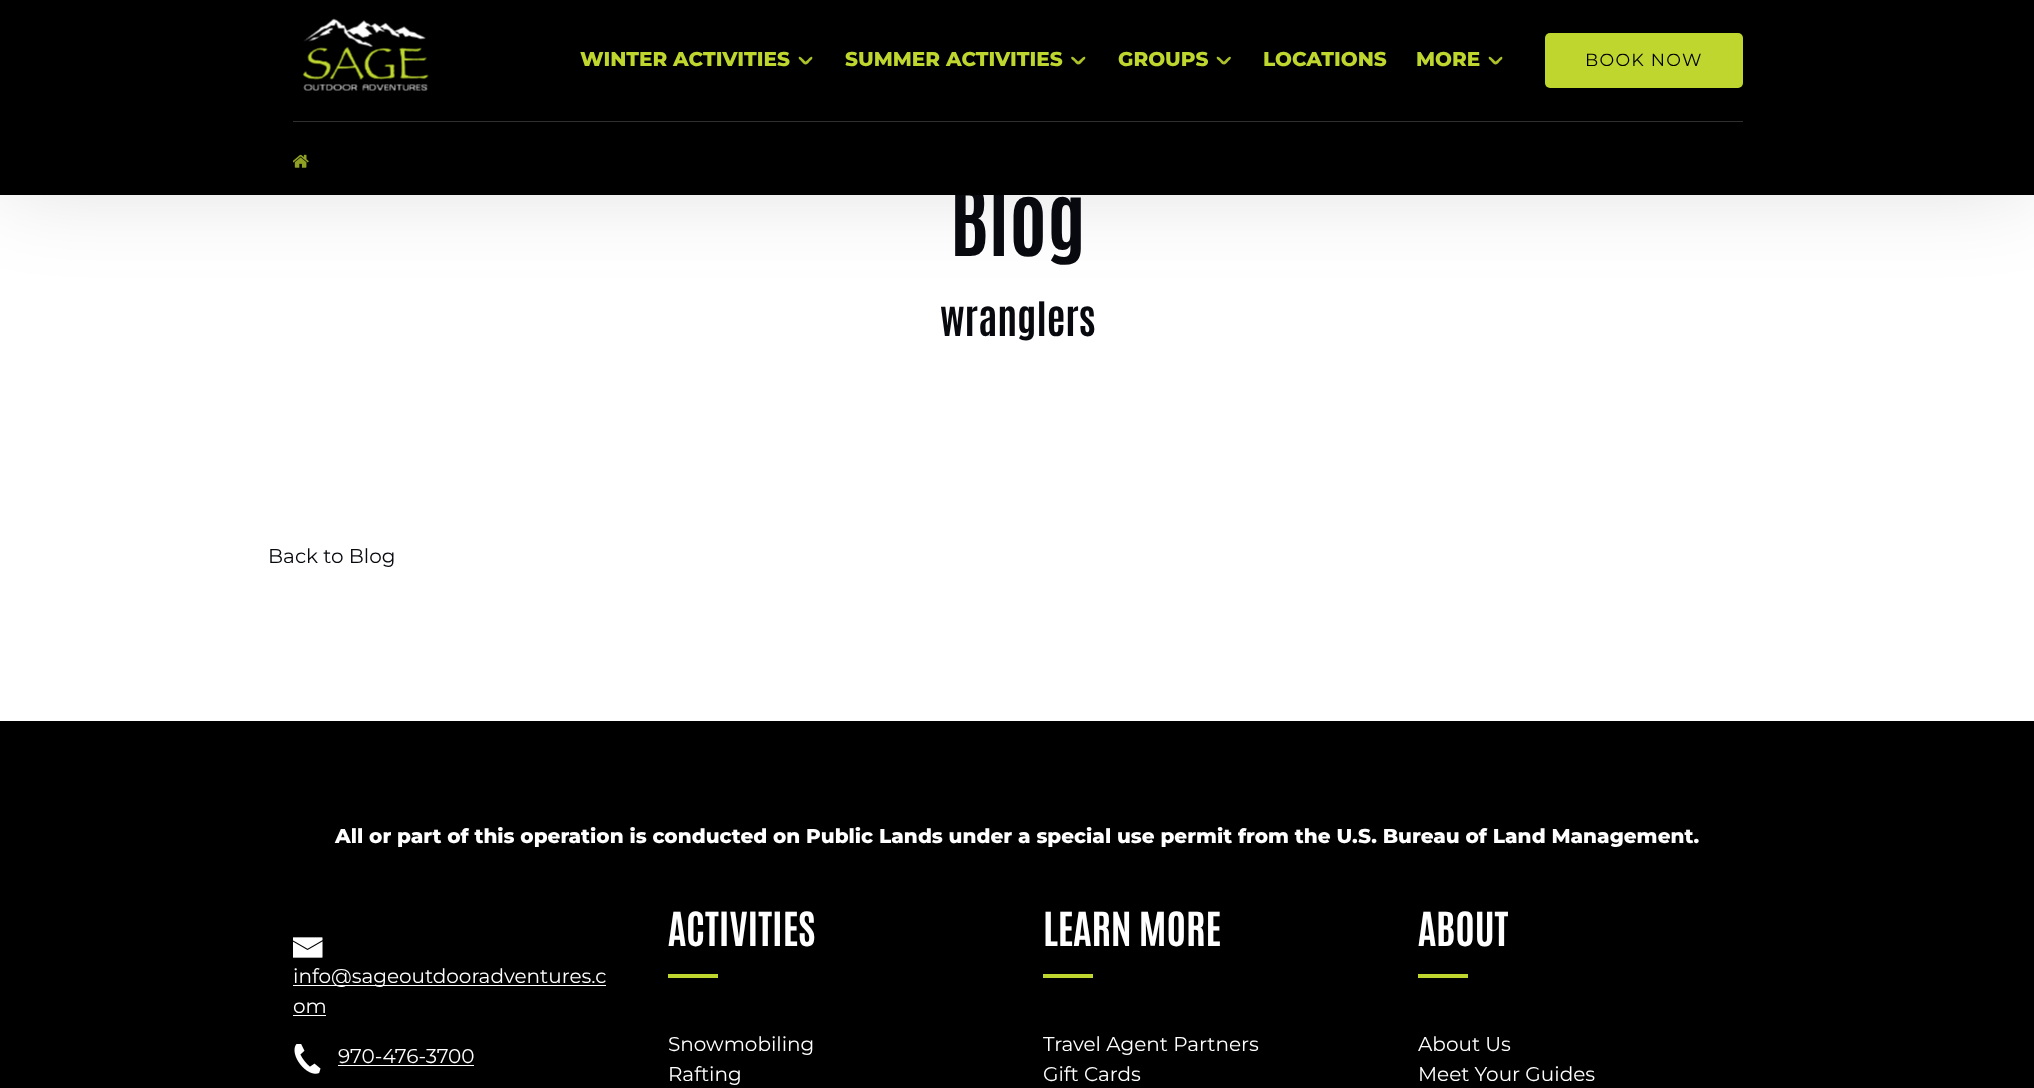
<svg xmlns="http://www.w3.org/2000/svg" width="2034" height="1088">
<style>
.a{font:bold 80px Antonio;fill:#08090e}
.b{font:100 17.5px Montserrat;letter-spacing:1.25px;fill:#000}
.c{font:100 20px 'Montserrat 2';fill:#bfd62f}
.d{font:bold 40px Antonio;fill:#08090e}
.e{font:100 20px Montserrat;fill:#08090e}
.f{font:100 20px 'Montserrat 2';fill:#fff}
.g{font:100 20px Montserrat;fill:#fff}
.h{font:bold 40px Antonio;fill:#fff}
</style>
<rect width="100%" height="100%" fill="#fff"/>
<path fill="#08090e26" filter="blur(47px)" d="M0 -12h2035v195H0z"/>
<path fill="#000" d="M0 721h2034v367H0z"/>
<image href="3.png" x="293" y="937" width="30" height="21"/>
<path fill="#fff" d="M293 985h313v1H293z"/>
<path fill="#fff" d="M293 1015h33v1H293z"/>
<image href="4.png" x="294" y="1044" width="27" height="30"/>
<path fill="#fff" d="M338 1065h136v1H338z"/>
<path fill="#bfd62f" d="M668 974h50v4H668z"/>
<path fill="#bfd62f" d="M1043 974h50v4H1043z"/>
<path fill="#bfd62f" d="M1418 974h50v4H1418z"/>
<text class="a" x="950" y="256">Blog</text>
<path fill="#000" d="M0 0h2034v195H0z"/>
<rect fill="#bfd62f" x="1545" y="33" width="198" height="55" rx="5"/>
<text class="b" x="1585" y="66">BOOK NOW</text>
<path fill="#acc12a" d="M1489 57c1.5-1.5 3.5 2 4.5 2.5c.5 1 4 3 2.5 4.5c-1.5 1.5-3.5-1.5-4.5-2.5c-.5-1-4-3-2.5-4.5z"/>
<path fill="#acc12a" d="M1502 57c1.5 1.5-1.5 3.5-2.5 4.5c-.5 1-3 4-4.5 2.5c-1.5-1.5 2-3.5 3-4.5c.5-.5 3-4 4-2.5z"/>
<text class="c" x="1416" y="66">MORE</text>
<text class="c" x="1263" y="66">LOCATIONS</text>
<path fill="#acc12a" d="M1217 57c1.5-1.5 4 2 4.5 2.5c1 1 4 3 2.5 4.5c-1 1.5-3.5-1.5-4-2.5c-1-1-4.5-3-3-4.5z"/>
<path fill="#acc12a" d="M1230.5 57c1.5 1.5-2 3.5-2.5 4.5c-1 1-3 4-4.5 2.5c-1.5-1.5 2-3.5 2.5-4.5c1-.5 3-4 4.5-2.5z"/>
<text class="c" x="1118" y="66">GROUPS</text>
<path fill="#acc12a" d="M1071.5 57c1.5-1.5 4 2 4.5 2.5c1 1 4 3 2.5 4.5c-1 1.5-3.5-1.5-4-2.5c-1-1-4.5-3-3-4.5z"/>
<path fill="#acc12a" d="M1085 57c1.5 1.5-2 3.5-2.5 4.5c-1 1-3 4-4.5 2.5c-1.5-1.5 1.5-3.5 2.5-4.5c1-.5 3-4 4.5-2.5z"/>
<text class="c" x="845" y="66">SUMMER ACTIVITIES</text>
<path fill="#acc12a" d="M799 57c1.5-1.5 3.5 2 4.5 2.5c.5 1 4 3 2.5 4.5c-1.5 1.5-3.5-1.5-4.5-2.5c-.5-1-4-3-2.5-4.5z"/>
<path fill="#acc12a" d="M812 57c1.5 1.5-1.5 3.5-2.5 4.5c-.5 1-3 4-4.5 2.5c-1-1.5 2-3.5 3-4.5c.5-.5 3-4 4-2.5z"/>
<text class="c" x="580" y="66">WINTER ACTIVITIES</text>
<image href="1.png" x="302" y="18" width="127" height="73"/>
<path fill="#303030" d="M293 121h1450v1H293z"/>
<image href="2.png" x="293" y="154" width="16" height="14"/>
<text class="d" x="940" y="336">wranglers</text>
<text class="e" x="268" y="563">Back to Blog</text>
<text class="f" x="335" y="843">All or part of this operation is conducted on Public Lands under a special use permit from the U.S. Bureau of Land Management.</text>
<text class="g" x="293" y="983">info@sageoutdooradventures.c</text>
<text class="g" x="293" y="1013">om</text>
<text class="g" x="338" y="1063">970-476-3700</text>
<text class="h" x="668" y="946">ACTIVITIES</text>
<text class="g" x="668" y="1051">Snowmobiling</text>
<text class="g" x="668" y="1081">Rafting</text>
<text class="h" x="1043" y="946">LEARN MORE</text>
<text class="g" x="1043" y="1051">Travel Agent Partners</text>
<text class="g" x="1043" y="1081">Gift Cards</text>
<text class="h" x="1418" y="946">ABOUT</text>
<text class="g" x="1418" y="1051">About Us</text>
<text class="g" x="1418" y="1081">Meet Your Guides</text>
</svg>
